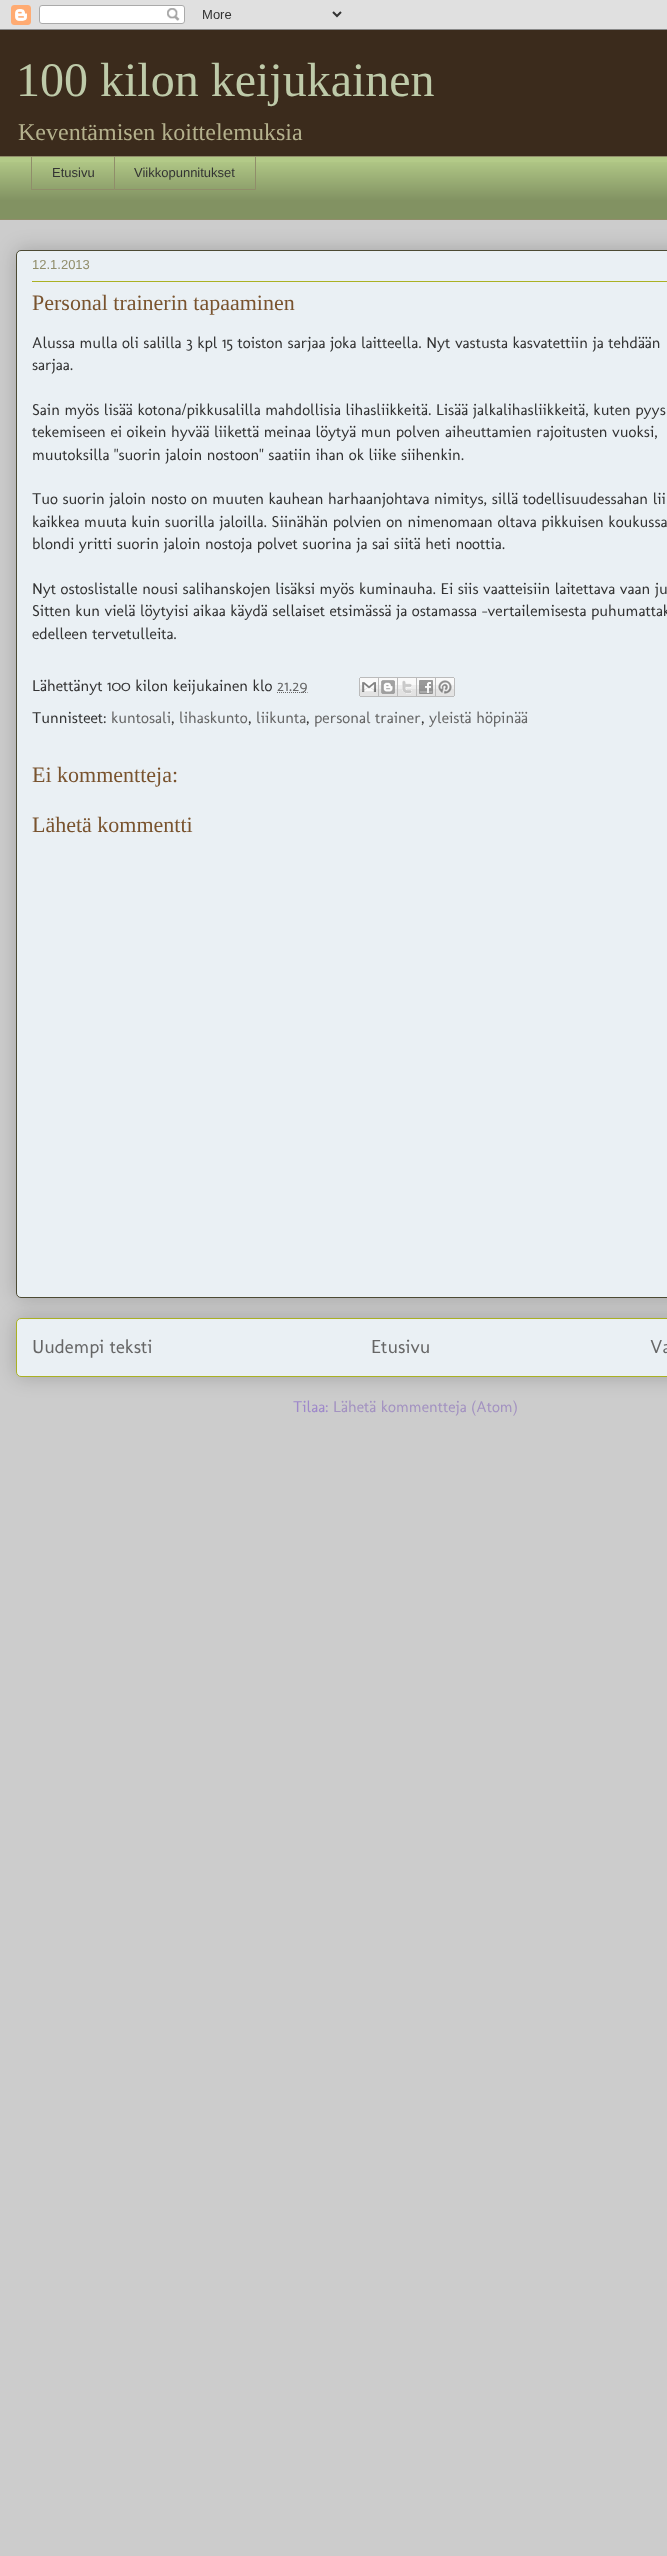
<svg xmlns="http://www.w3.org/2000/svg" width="667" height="2556">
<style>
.a{font:48px Liberation Serif;fill:#becaa9}
.b{font:24px Liberation Serif;fill:#b4b18d}
.c{font:13px Liberation Sans;fill:#333}
.d{font:13px Liberation Sans;fill:#908d6a}
.e{font:22px Liberation Serif;fill:#79532e}
.f{font:16px Molengo;fill:#333}
.g{font:16px Molengo;fill:#666}
.h{font:19.25px Molengo;fill:#666}
.i{font:16px Molengo;fill:#9e88ca}
.j{font:16px Molengo;fill:#a392c1}
</style>
<rect width="100%" height="100%" fill="#ccc"/>
<image href="1.png" x="0" y="0" width="667" height="30"/>
<path fill="#3b2b1c" d="M0 30h667v126H0z"/>
<path fill="#b3ca88" d="M0 157h667v62H0z"/>
<image href="2.png" x="0" y="162" width="667" height="57"/>
<path fill="#908d6a" d="M0 156h667v1H0z"/>
<path fill="#908d6a" d="M31 189h83v1H31z"/>
<path fill="#908d6a" d="M31 156h1v34H31z"/>
<path fill="none" stroke="#908d6a" d="M114.5 156.5h141v33H114.5z"/>
<path fill="#908d6a" d="M0 219h667v1H0z"/>
<rect fill="#00000033" filter="blur(10px)" x="16" y="1318" width="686" height="59" rx="5"/>
<rect fill="#eaf0f4" stroke="#aab123" x="16.5" y="1318.5" width="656" height="58" rx="4.5"/>
<rect fill="#00000033" filter="blur(10px)" x="16" y="250" width="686" height="1048" rx="5"/>
<rect fill="#eaf0f4" stroke="#4c4a33" x="16.5" y="250.5" width="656" height="1047" rx="4.5"/>
<path fill="#aab123" d="M32 281h635v1H32z"/>
<path fill="none" stroke="#666" stroke-dasharray="1 1" d="M277 692.5h30.5"/>
<image href="3.png" x="359" y="677" width="20" height="20"/>
<image href="4.png" x="379" y="677" width="19" height="20"/>
<image href="5.png" x="398" y="677" width="19" height="20"/>
<image href="6.png" x="417" y="677" width="19" height="20"/>
<image href="7.png" x="436" y="677" width="19" height="20"/>
<text class="a" x="16" y="96">100 kilon keijukainen</text>
<text class="b" x="18" y="140">Keventämisen koittelemuksia</text>
<text class="c" x="52" y="177">Etusivu</text>
<text class="c" x="134" y="177">Viikkopunnitukset</text>
<text class="d" x="32" y="269">12.1.2013</text>
<text class="e" x="32" y="310">Personal trainerin tapaaminen</text>
<text class="f" x="32" y="348">Alussa mulla oli salilla 3 kpl 15 toiston sarjaa joka laitteella. Nyt vastusta kasvatettiin ja tehdään</text>
<text class="f" x="32" y="370">sarjaa.</text>
<text class="f" x="32" y="415">Sain myös lisää kotona/pikkusalilla mahdollisia lihasliikkeitä. Lisää jalkalihasliikkeitä, kuten pyys</text>
<text class="f" x="32" y="437">tekemiseen ei oikein hyvää liikettä meinaa löytyä mun polven aiheuttamien rajoitusten vuoksi,</text>
<text class="f" x="32" y="460">muutoksilla "suorin jaloin nostoon" saatiin ihan ok liike siihenkin.</text>
<text class="f" x="32" y="504">Tuo suorin jaloin nosto on muuten kauhean harhaanjohtava nimitys, sillä todellisuudessahan lii</text>
<text class="f" x="32" y="527">kaikkea muuta kuin suorilla jaloilla. Siinähän polvien on nimenomaan oltava pikkuisen koukussa</text>
<text class="f" x="32" y="549">blondi yritti suorin jaloin nostoja polvet suorina ja sai siitä heti noottia.</text>
<text class="f" x="32" y="594">Nyt ostoslistalle nousi salihanskojen lisäksi myös kuminauha. Ei siis vaatteisiin laitettava vaan ju</text>
<text class="f" x="32" y="616">Sitten kun vielä löytyisi aikaa käydä sellaiset etsimässä ja ostamassa -vertailemisesta puhumattak</text>
<text class="f" x="32" y="639">edelleen tervetulleita.</text>
<text class="f" x="32" y="691">Lähettänyt 100 kilon keijukainen klo</text>
<text class="g" x="277" y="691">21.29</text>
<text class="f" x="32" y="723">Tunnisteet:</text>
<text class="g" x="111" y="723">kuntosali</text>
<text class="f" x="171" y="723">,</text>
<text class="g" x="179" y="723">lihaskunto</text>
<text class="f" x="248" y="723">,</text>
<text class="g" x="256" y="723">liikunta</text>
<text class="f" x="306" y="723">,</text>
<text class="g" x="314" y="723">personal trainer</text>
<text class="f" x="421" y="723">,</text>
<text class="g" x="429" y="723">yleistä höpinää</text>
<text class="e" x="32" y="782">Ei kommentteja:</text>
<text class="e" x="32" y="832">Lähetä kommentti</text>
<text class="h" x="32" y="1353">Uudempi teksti</text>
<text class="h" x="371" y="1353">Etusivu</text>
<text class="h" x="650" y="1353">Va</text>
<text class="i" x="293" y="1412">Tilaa:</text>
<text class="j" x="333" y="1412">Lähetä kommentteja (Atom)</text>
</svg>
